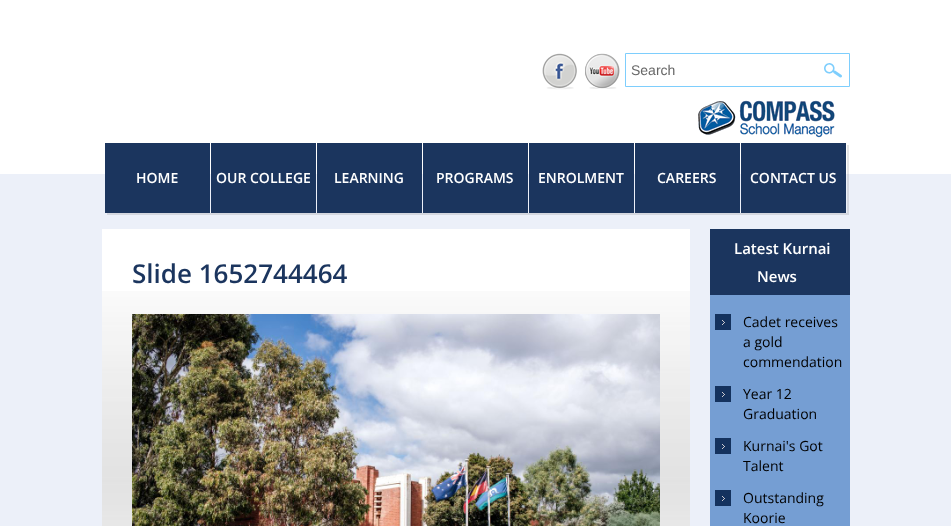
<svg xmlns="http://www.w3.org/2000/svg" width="951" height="526">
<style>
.a{font:14px Liberation Sans;fill:#666}
.b{font:600 14px Open Sans;fill:#fff}
.c{font:600 26px Open Sans;fill:#1b355e}
.d{font:600 15px Open Sans;fill:#fff}
.e{font:14px Open Sans;fill:#000}
</style>
<rect width="100%" height="100%" fill="#ecf0f9"/>
<path fill="#fff" d="M0 0h951v174H0z"/>
<image href="1.png" x="542" y="53" width="35" height="37"/>
<image href="2.png" x="585" y="53" width="35" height="36"/>
<path fill="none" stroke="#7ecefd" d="M625.5 53.5h224v33H625.5z"/>
<image href="3.png" x="824" y="63" width="18" height="15"/>
<image href="4.png" x="698" y="100" width="137" height="38"/>
<path fill="#0000001a" d="M107 213v2h742v-70h-2v68z"/>
<path fill="#1b355e" d="M105 143h105v70H105z"/>
<path fill="#1b355e" d="M211 143h105v70H211z"/>
<path fill="#1b355e" d="M317 143h105v70H317z"/>
<path fill="#1b355e" d="M423 143h105v70H423z"/>
<path fill="#1b355e" d="M529 143h105v70H529z"/>
<path fill="#1b355e" d="M635 143h105v70H635z"/>
<path fill="#1b355e" d="M741 143h105v70H741z"/>
<path fill="#fff" d="M102 229h588v62H102z"/>
<image href="5.png" x="102" y="291" width="588" height="235"/>
<image href="6.png" x="132" y="314" width="528" height="212"/>
<path fill="#759ed3" d="M710 295h140v231H710z"/>
<path fill="#1b355e" d="M710 229h140v66H710z"/>
<image href="7.png" x="715" y="314" width="16" height="16"/>
<image href="7.png" x="715" y="386" width="16" height="16"/>
<image href="7.png" x="715" y="438" width="16" height="16"/>
<image href="7.png" x="715" y="490" width="16" height="16"/>
<text class="a" x="631" y="75">Search</text>
<text class="b" x="136" y="183">HOME</text>
<text class="b" x="216" y="183">OUR COLLEGE</text>
<text class="b" x="334" y="183">LEARNING</text>
<text class="b" x="436" y="183">PROGRAMS</text>
<text class="b" x="538" y="183">ENROLMENT</text>
<text class="b" x="657" y="183">CAREERS</text>
<text class="b" x="750" y="183">CONTACT US</text>
<text class="c" x="132" y="283">Slide 1652744464</text>
<text class="d" x="734" y="254">Latest Kurnai</text>
<text class="d" x="757" y="282">News</text>
<text class="e" x="743" y="327">Cadet receives</text>
<text class="e" x="743" y="347">a gold</text>
<text class="e" x="743" y="367">commendation</text>
<text class="e" x="743" y="399">Year 12</text>
<text class="e" x="743" y="419">Graduation</text>
<text class="e" x="743" y="451">Kurnai's Got</text>
<text class="e" x="743" y="471">Talent</text>
<text class="e" x="743" y="503">Outstanding</text>
<text class="e" x="743" y="523">Koorie</text>
</svg>
